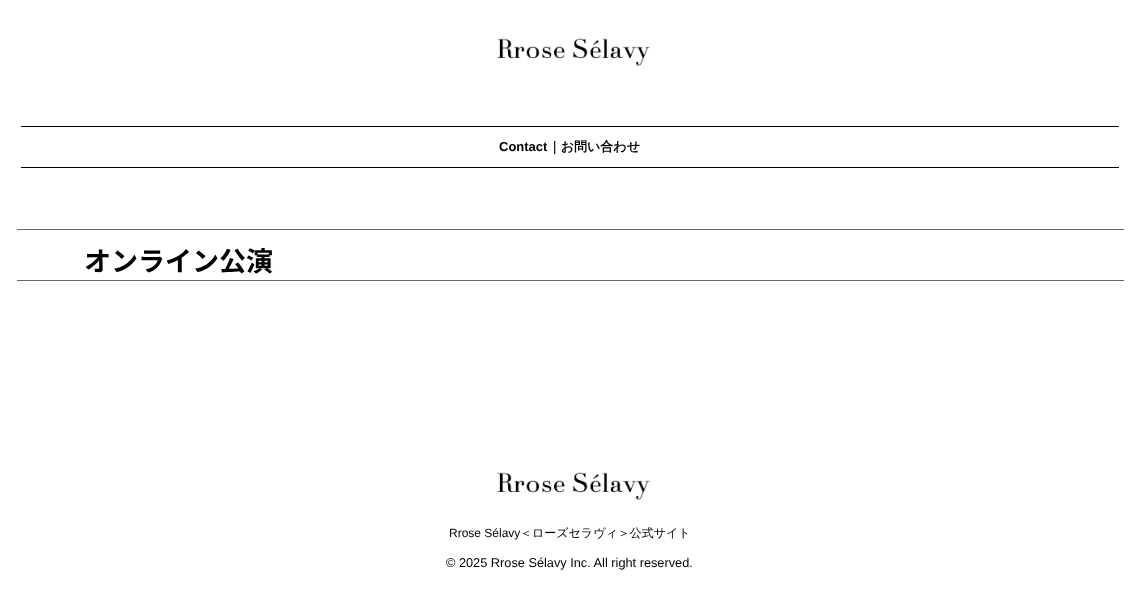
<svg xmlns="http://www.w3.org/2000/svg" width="1139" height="592">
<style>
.a{font:bold 13px Liberation Sans;fill:#000}
.b{font:bold 13px WenQuanYi Zen Hei;fill:#000}
.c{font:bold 27px Noto Sans JP;fill:#000}
.d{font:12px Liberation Sans;fill:#000}
.e{font:500 12px WenQuanYi Zen Hei;fill:#000}
.f{font:12.75px Liberation Sans;fill:#000}
</style>
<rect width="100%" height="100%" fill="#fff"/>
<image href="1.png" x="497" y="38" width="153" height="28"/>
<path fill="#000" d="M21 126h1098v1H21z"/>
<path fill="#000" d="M21 167h1098v1H21z"/>
<path fill="#686868" d="M17 229h1107v1H17z"/>
<path fill="#686868" d="M17 280h1107v1H17z"/>
<image href="1.png" x="497" y="472" width="153" height="28"/>
<text class="a" x="499" y="151">Contact</text>
<text class="b" x="548" y="151">｜お問い合わせ</text>
<text class="c" x="84" y="271">オンライン公演</text>
<text class="d" x="449" y="537">Rrose Sélavy</text>
<text class="e" x="520" y="537">＜ローズセラヴィ＞公式サイト</text>
<text class="f" x="446" y="567">© 2025 Rrose Sélavy Inc. All right reserved.</text>
</svg>
